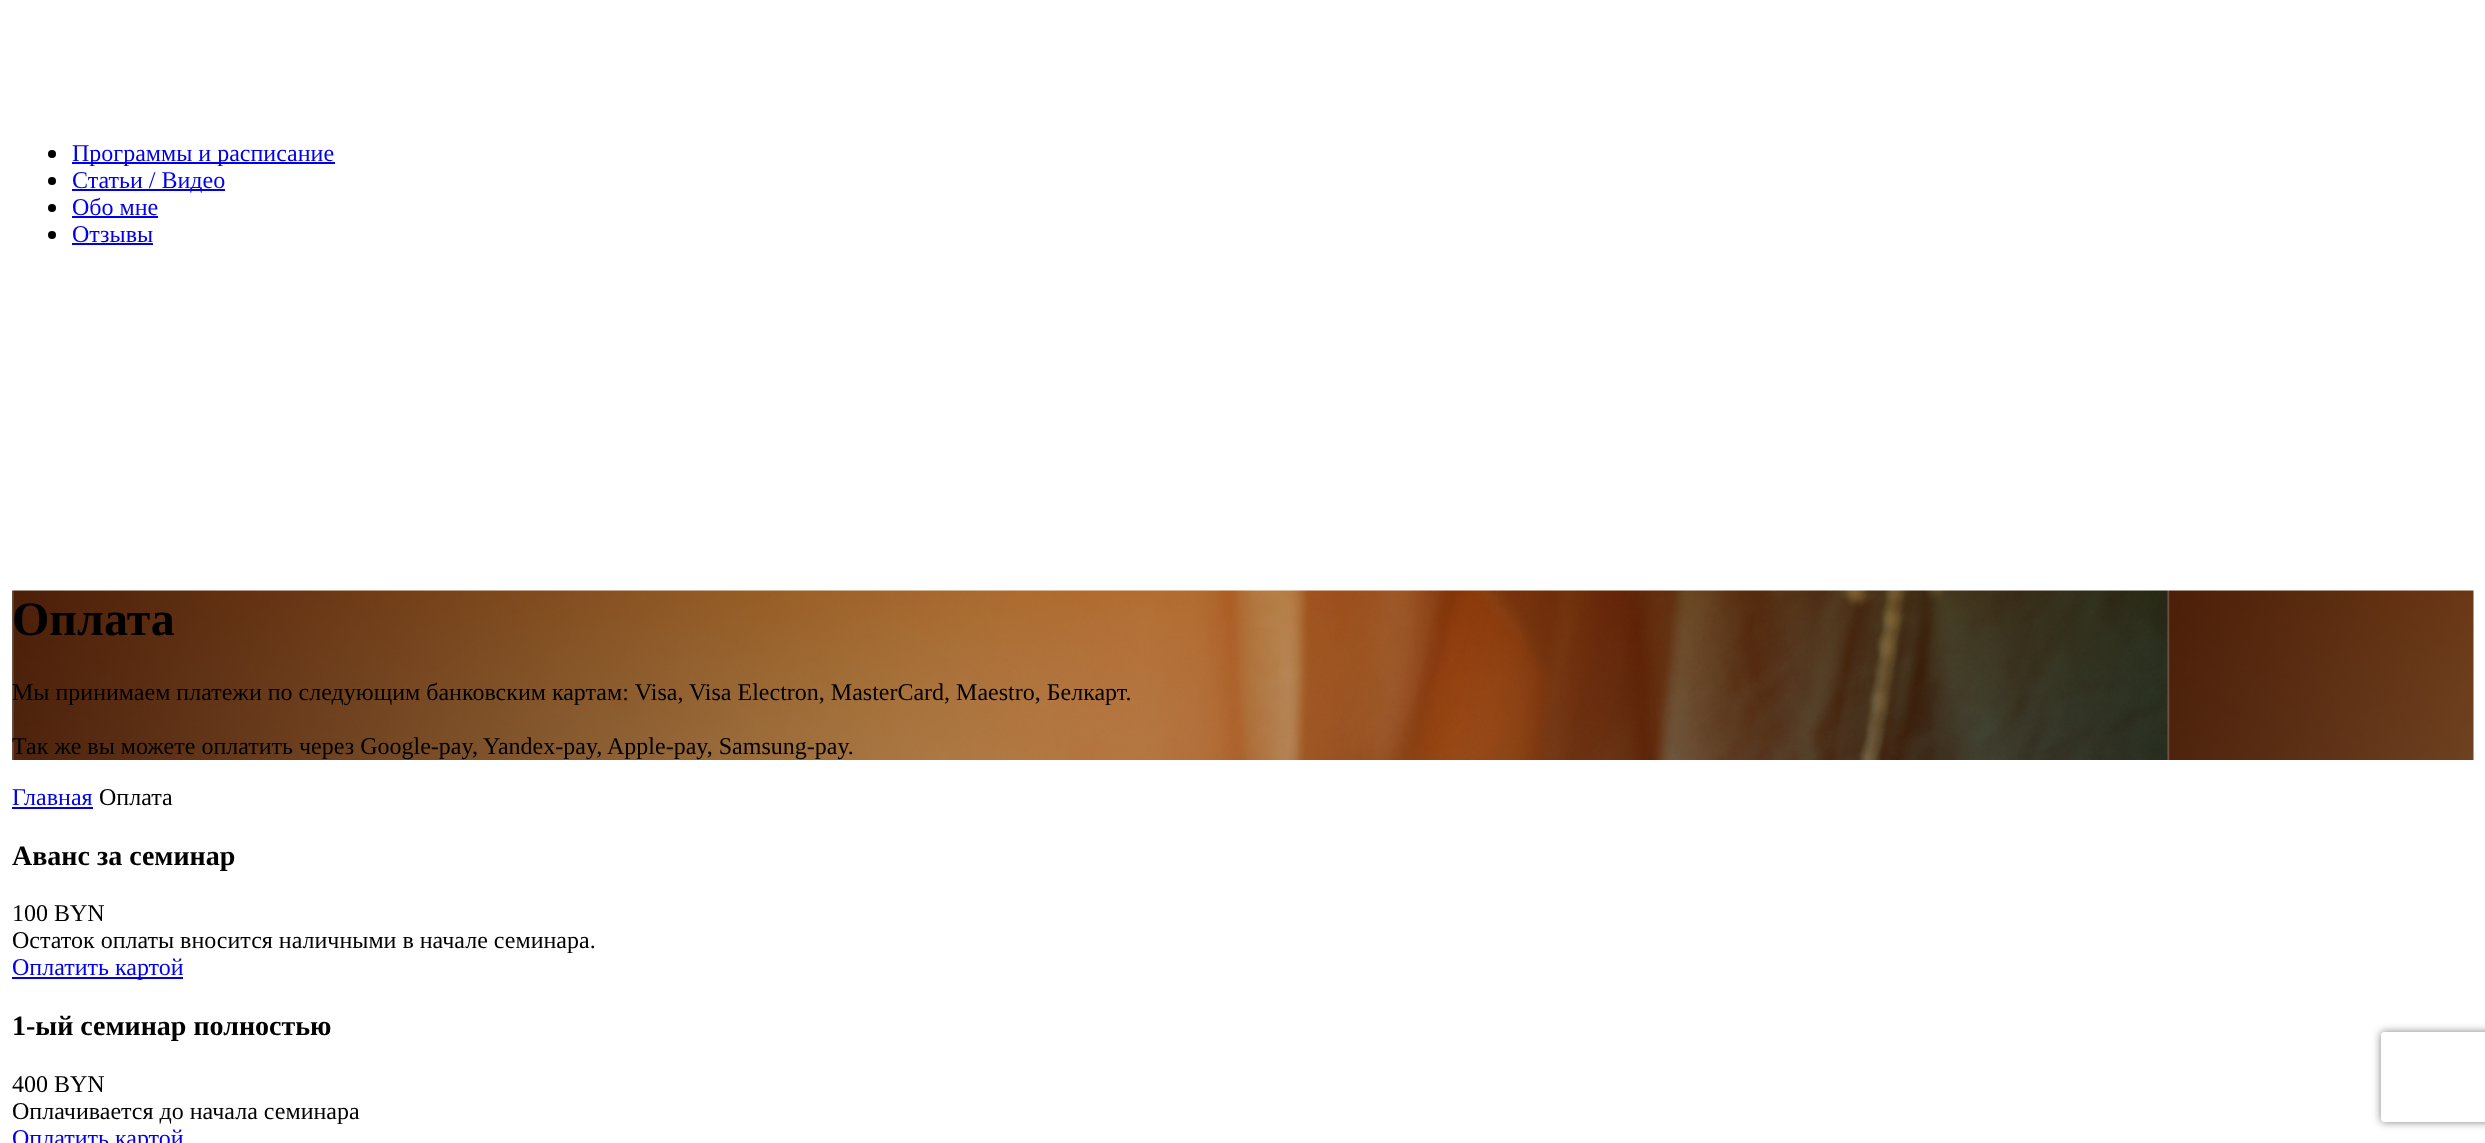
<svg xmlns="http://www.w3.org/2000/svg" width="2485" height="1143">
<style>
.a{font:24px Liberation Serif;fill:#00e}
.b{font:bold 48px Liberation Serif;fill:#000}
.c{font:24px Liberation Serif;fill:#000}
.d{font:bold 28px Liberation Serif;fill:#000}
</style>
<defs>
<clipPath id="clip1"><path d="M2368 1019h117v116h-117zm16 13h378c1.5 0 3 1.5 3 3v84c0 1.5-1.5 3-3 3h-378c-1.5 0-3-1.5-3-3v-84c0-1.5 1.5-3 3-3z" clip-rule="evenodd"/></clipPath>
</defs>
<rect width="100%" height="100%" fill="#fff"/>
<circle fill="#000" cx="52" cy="154" r="4"/>
<path fill="#00e" d="M72 162h263v2H72z"/>
<circle fill="#000" cx="52" cy="181" r="4"/>
<path fill="#00e" d="M72 189h153v2H72z"/>
<circle fill="#000" cx="52" cy="208" r="4"/>
<path fill="#00e" d="M72 216h86v2H72z"/>
<circle fill="#000" cx="52" cy="235" r="4"/>
<path fill="#00e" d="M72 243h81v2H72z"/>
<image href="1.png" x="12" y="590" width="2462" height="170"/>
<path fill="#00e" d="M12 807h81v2H12z"/>
<path fill="#00e" d="M12 977h171v2H12z"/>
<g clip-path="url(#clip1)">
<rect fill="#808080" filter="blur(4px)" x="2381" y="1032" width="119" height="90" rx="3"/>
</g>
<text class="a" x="72" y="161">Программы и расписание</text>
<text class="a" x="72" y="188">Статьи / Видео</text>
<text class="a" x="72" y="215">Обо мне</text>
<text class="a" x="72" y="242">Отзывы</text>
<text class="b" x="12" y="635">Оплата</text>
<text class="c" x="12" y="700">Мы принимаем платежи по следующим банковским картам: Visa, Visa Electron, MasterCard, Maestro, Белкарт.</text>
<text class="c" x="12" y="754">Так же вы можете оплатить через Google-pay, Yandex-pay, Apple-pay, Samsung-pay.</text>
<text class="a" x="12" y="805">Главная</text>
<text class="c" x="99" y="805">Оплата</text>
<text class="d" x="12" y="865">Аванс за семинар</text>
<text class="c" x="12" y="921">100 BYN</text>
<text class="c" x="12" y="948">Остаток оплаты вносится наличными в начале семинара.</text>
<text class="a" x="12" y="975">Оплатить картой</text>
<text class="d" x="12" y="1035">1-ый семинар полностью</text>
<text class="c" x="12" y="1092">400 BYN</text>
<text class="c" x="12" y="1119">Оплачивается до начала семинара</text>
<text class="a" x="12" y="1146">Оплатить картой</text>
</svg>
